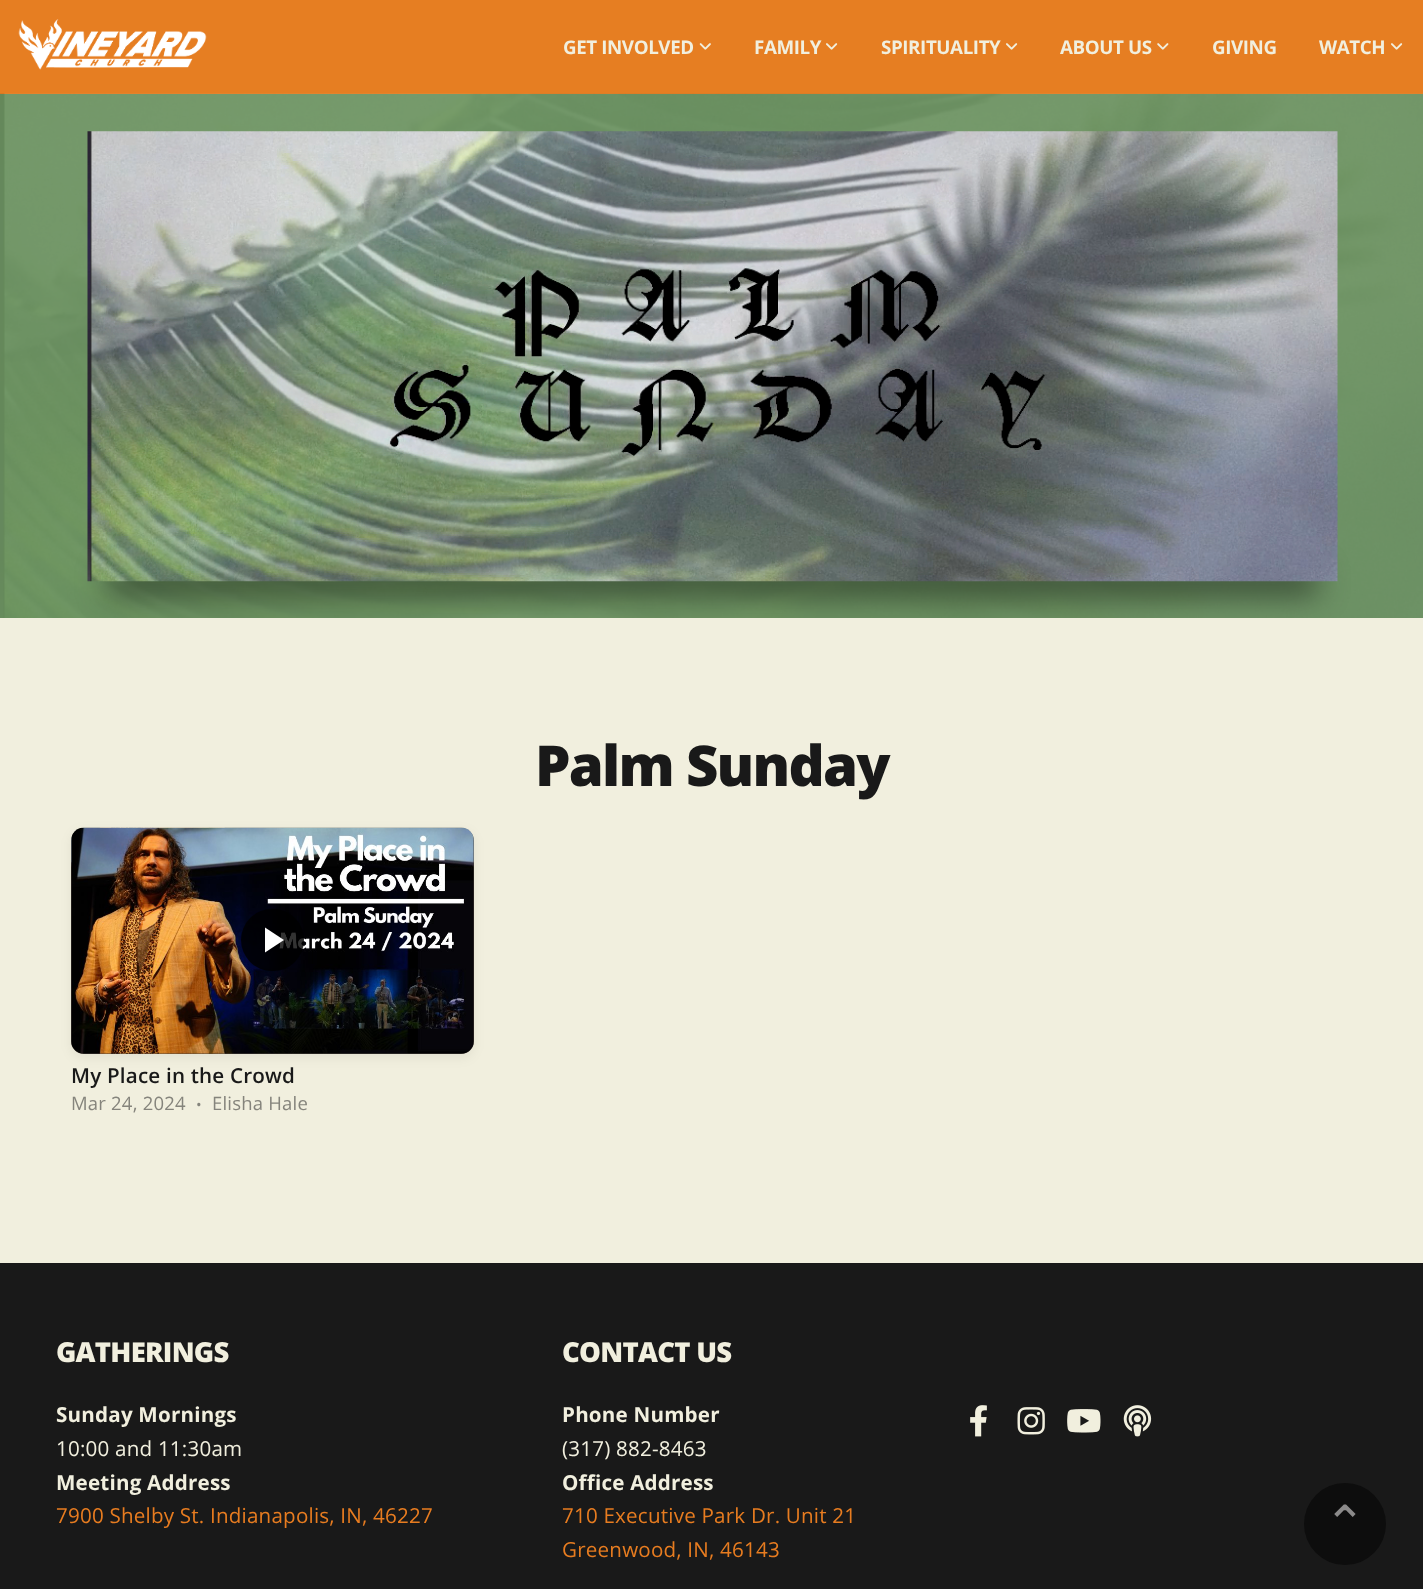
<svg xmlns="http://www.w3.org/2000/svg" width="1423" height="1589">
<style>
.a{font:bold 18.75px Open Sans;letter-spacing:-0.4px;fill:#f1efde}
.b{font:800 56.25px Open Sans;letter-spacing:-1.75px;fill:#191919}
.c{font:600 20.6px Open Sans;letter-spacing:0.2px;fill:#191919}
.d{font:18.5px Open Sans;letter-spacing:0.2px;fill:#85847c}
.e{font:15px Open Sans;letter-spacing:0.2px;fill:#85847c}
.f{font:800 27.5px Open Sans;letter-spacing:-0.75px;fill:#f1efde}
.g{font:bold 20.6px Open Sans;letter-spacing:0.2px;fill:#f1efde}
.h{font:20.6px Open Sans;letter-spacing:0.2px;fill:#f1efde}
.i{font:20.6px Open Sans;letter-spacing:0.2px;fill:#e77c20}
.j{font:50px DejaVu Sans;fill:#8b8a8a}
</style>
<rect width="100%" height="100%" fill="#e67e22"/>
<image href="1.png" x="18" y="19" width="189" height="51"/>
<image href="2.png" x="699" y="43" width="12" height="7"/>
<image href="3.png" x="826" y="43" width="12" height="7"/>
<image href="3.png" x="1006" y="43" width="12" height="7"/>
<image href="4.png" x="1157" y="43" width="12" height="7"/>
<image href="3.png" x="1391" y="43" width="12" height="7"/>
<image href="5.png" x="0" y="93" width="1423" height="525"/>
<rect fill="#00000080" filter="blur(15.5px)" x="105" y="568" width="1215" height="27" rx="13.5"/>
<image href="6.png" x="87" y="131" width="1251" height="451"/>
<path fill="#f1efde" d="M0 618h1423v645H0z"/>
<rect fill="#0000000f" filter="blur(6px)" x="71" y="831" width="403" height="227" rx="13"/>
<rect fill="#4b423b" x="71" y="828" width="403" height="226" rx="13"/>
<image href="7.png" x="71" y="827" width="403" height="227"/>
<rect fill="#000000cc" x="241" y="909" width="63" height="62" rx="31"/>
<path fill="#fff" d="M265 952.5v-25l19 12.5z"/>
<path fill="#191919" d="M0 1263h1423v326H0z"/>
<image href="8.png" x="970" y="1405" width="17" height="32"/>
<image href="9.png" x="1017" y="1407" width="28" height="28"/>
<image href="10.png" x="1067" y="1409" width="34" height="24"/>
<image href="11.png" x="1123" y="1405" width="29" height="32"/>
<circle fill="#0d0d0d" cx="1345" cy="1524" r="41"/>
<text class="a" x="563" y="54">GET INVOLVED</text>
<text class="a" x="754" y="54">FAMILY</text>
<text class="a" x="881" y="54">SPIRITUALITY</text>
<text class="a" x="1060" y="54">ABOUT US</text>
<text class="a" x="1212" y="54">GIVING</text>
<text class="a" x="1319" y="54">WATCH</text>
<text class="b" x="535" y="786">Palm Sunday</text>
<text class="c" x="71" y="1083">My Place in the Crowd</text>
<text class="d" x="71" y="1110">Mar 24, 2024</text>
<text class="e" x="196" y="1110">•</text>
<text class="d" x="212" y="1110">Elisha Hale</text>
<text class="f" x="56" y="1362">GATHERINGS</text>
<text class="g" x="56" y="1422">Sunday Mornings</text>
<text class="h" x="56" y="1456">10:00 and 11:30am</text>
<text class="g" x="56" y="1490">Meeting Address</text>
<text class="i" x="56" y="1523">7900 Shelby St. Indianapolis, IN, 46227</text>
<text class="f" x="562" y="1362">CONTACT US</text>
<text class="g" x="562" y="1422">Phone Number</text>
<text class="h" x="562" y="1456">(317) 882-8463</text>
<text class="g" x="562" y="1490">Office Address</text>
<text class="i" x="562" y="1523">710 Executive Park Dr. Unit 21</text>
<text class="i" x="562" y="1557">Greenwood, IN, 46143</text>
<text class="j" x="1324" y="1541">⌃</text>
</svg>
